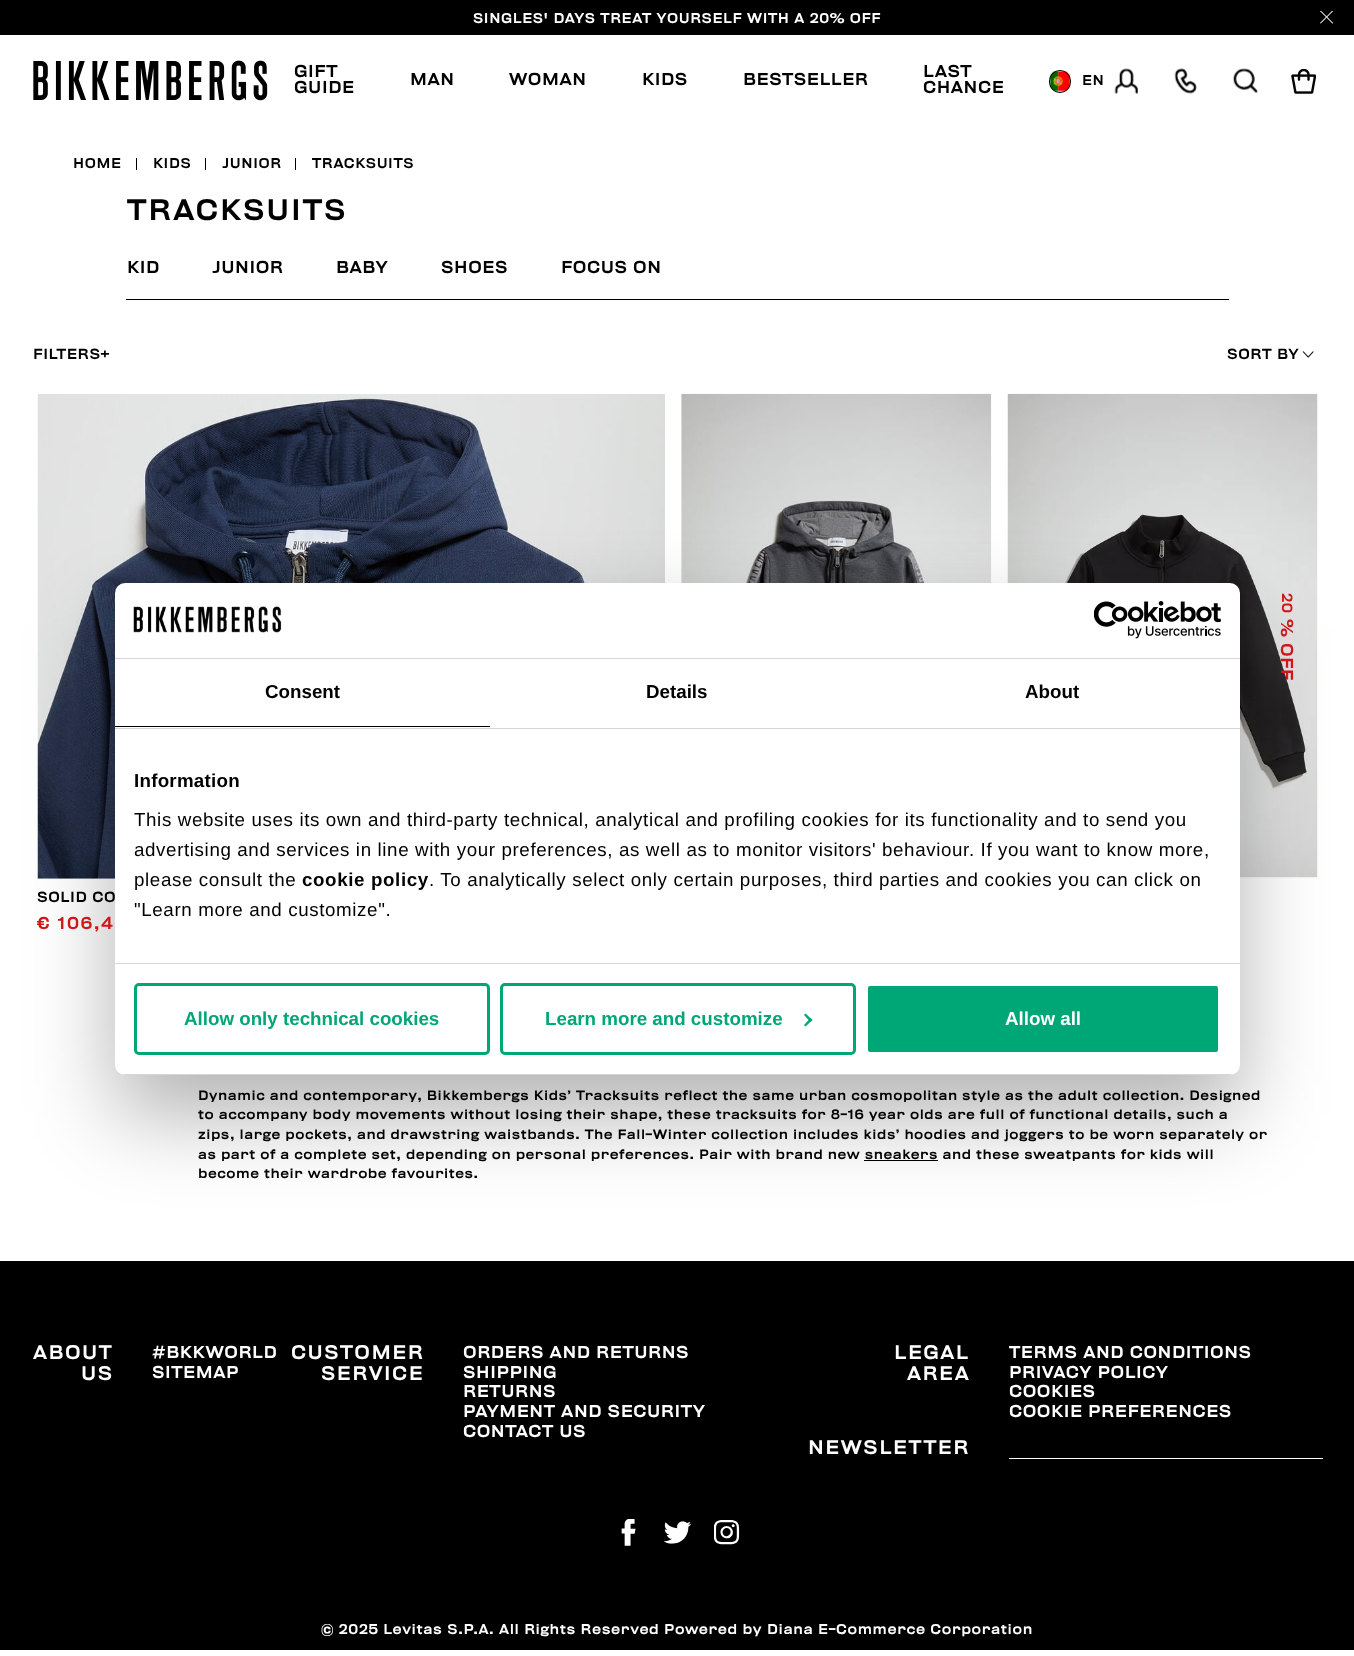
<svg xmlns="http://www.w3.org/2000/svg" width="1354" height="1656">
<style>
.a{font:500 12.5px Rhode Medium;letter-spacing:0.62px;fill:#fff}
.b{font:500 15.25px Rhode Medium;letter-spacing:0.55px;fill:#000}
.c{font:500 12.5px Rhode Medium;letter-spacing:0.62px;fill:#000}
.d{font:500 26.25px Rhode Medium;letter-spacing:1.9px;fill:#000}
.e{font:500 13px Rhode Medium;letter-spacing:0.55px;fill:#000}
.f{font:500 13px Rhode Medium;letter-spacing:0.55px;fill:#d01616}
.g{font:500 15.25px Rhode Medium;letter-spacing:0.55px;fill:#d01616}
.h{font:500 15.25px Rhode Medium;letter-spacing:1.5px;fill:#d01616}
.i{font:500 12.03px Rhode Medium;letter-spacing:0.55px;fill:#000}
.j{font:500 17.5px Rhode Medium;letter-spacing:1.5px;fill:#fff}
.k{font:500 15.25px Rhode Medium;letter-spacing:0.55px;fill:#fff}
.l{font:bold 18.75px Liberation Sans;fill:#000}
.m{font:bold 18.75px Liberation Sans;letter-spacing:0.25px;fill:#000}
.n{font:18.75px Liberation Sans;letter-spacing:0.62px;fill:#000}
.o{font:bold 18.75px Liberation Sans;letter-spacing:0.62px;fill:#000}
.p{font:bold 18.75px Liberation Sans;fill:#00a776}
.q{font:bold 18.75px Liberation Sans;fill:#fff}
</style>
<defs>
<clipPath id="clip1"><rect x="115" y="583" width="1125" height="492" rx="10"/></clipPath>
</defs>
<rect width="100%" height="100%" fill="#fff"/>
<path fill="#000" d="M0 0h1354v35H0z"/>
<image href="1.png" x="1320" y="11" width="13" height="13"/>
<image href="2.png" x="33" y="60" width="235" height="41"/>
<image href="3.png" x="1049" y="71" width="21" height="21"/>
<rect fill="none" stroke="#000" x="1049.5" y="70.5" width="21" height="22" rx="10.5"/>
<image href="4.png" x="1114" y="68" width="24" height="26"/>
<image href="5.png" x="1174" y="68" width="23" height="26"/>
<image href="6.png" x="1233" y="68" width="25" height="25"/>
<image href="7.png" x="1291" y="69" width="25" height="25"/>
<path fill="#000" d="M136 158h1v12H136z"/>
<path fill="#000" d="M205 158h1v12H205z"/>
<path fill="#000" d="M295 158h1v12H295z"/>
<path fill="#000" d="M126 299h1103v1H126z"/>
<image href="8.png" x="1302" y="351" width="12" height="7"/>
<image href="9.png" x="681" y="393" width="311" height="190"/>
<image href="10.png" x="1007" y="393" width="311" height="485"/>
<image href="11.png" x="37" y="394" width="628" height="485"/>
<path fill="#000" d="M864 1160h74v1H864z"/>
<path fill="#000" d="M0 1261h1354v389H0z"/>
<path fill="#fff" d="M1009 1458h314v1H1009z"/>
<image href="12.png" x="621" y="1519" width="15" height="27"/>
<image href="13.png" x="664" y="1521" width="27" height="23"/>
<image href="14.png" x="714" y="1520" width="26" height="25"/>
<rect fill="#0000004d" filter="blur(42.5px)" x="115" y="623" width="1125" height="492" rx="10"/>
<text class="a" x="473" y="23">SINGLES' DAYS TREAT YOURSELF WITH A 20% OFF</text>
<text class="b" x="294" y="77">GIFT</text>
<text class="b" x="294" y="93">GUIDE</text>
<text class="b" x="410" y="85">MAN</text>
<text class="b" x="509" y="85">WOMAN</text>
<text class="b" x="642" y="85">KIDS</text>
<text class="b" x="743" y="85">BESTSELLER</text>
<text class="b" x="923" y="77">LAST</text>
<text class="b" x="923" y="93">CHANCE</text>
<text class="c" x="1082" y="85">EN</text>
<text class="c" x="73" y="168">HOME</text>
<text class="c" x="153" y="168">KIDS</text>
<text class="c" x="222" y="168">JUNIOR</text>
<text class="c" x="312" y="168">TRACKSUITS</text>
<text class="d" x="127" y="220">TRACKSUITS</text>
<text class="b" x="127" y="273">KID</text>
<text class="b" x="212" y="273">JUNIOR</text>
<text class="b" x="336" y="273">BABY</text>
<text class="b" x="441" y="273">SHOES</text>
<text class="b" x="561" y="273">FOCUS ON</text>
<text class="e" x="33" y="359">FILTERS+</text>
<text class="e" x="1227" y="359">SORT BY</text>
<text class="f" x="1282" y="593" transform="rotate(90 1282 593)">20</text>
<text class="g" x="1281" y="619" transform="rotate(90 1281 619)">% OFF</text>
<text class="e" x="37" y="902">SOLID CO</text>
<text class="h" x="37" y="929">€ 106,4</text>
<text class="i" x="198" y="1100">Dynamic and contemporary, Bikkembergs Kids’ Tracksuits reflect the same urban cosmopolitan style as the adult collection. Designed</text>
<text class="i" x="198" y="1119">to accompany body movements without losing their shape, these tracksuits for 8-16 year olds are full of functional details, such a</text>
<text class="i" x="198" y="1139">zips, large pockets, and drawstring waistbands. The Fall-Winter collection includes kids’ hoodies and joggers to be worn separately or</text>
<text class="i" x="198" y="1159">as part of a complete set, depending on personal preferences. Pair with brand new sneakers and these sweatpants for kids will</text>
<text class="i" x="198" y="1178">become their wardrobe favourites.</text>
<text class="j" x="33" y="1359">ABOUT</text>
<text class="j" x="81" y="1380">US</text>
<text class="k" x="152" y="1358">#BKKWORLD</text>
<text class="k" x="152" y="1378">SITEMAP</text>
<text class="j" x="291" y="1359">CUSTOMER</text>
<text class="j" x="321" y="1380">SERVICE</text>
<text class="k" x="463" y="1358">ORDERS AND RETURNS</text>
<text class="k" x="463" y="1378">SHIPPING</text>
<text class="k" x="463" y="1397">RETURNS</text>
<text class="k" x="463" y="1417">PAYMENT AND SECURITY</text>
<text class="k" x="463" y="1437">CONTACT US</text>
<text class="j" x="894" y="1359">LEGAL</text>
<text class="j" x="907" y="1380">AREA</text>
<text class="k" x="1009" y="1358">TERMS AND CONDITIONS</text>
<text class="k" x="1009" y="1378">PRIVACY POLICY</text>
<text class="k" x="1009" y="1397">COOKIES</text>
<text class="k" x="1009" y="1417">COOKIE PREFERENCES</text>
<text class="j" x="808" y="1454">NEWSLETTER</text>
<text class="a" x="321" y="1634">© 2025 Levitas S.P.A. All Rights Reserved Powered by Diana E-Commerce Corporation</text>
<rect fill="#fff" x="115" y="583" width="1125" height="492" rx="10"/>
<path fill="#d6d6d6" d="M115 658h1125v1H115z"/>
<image href="15.png" x="133" y="606" width="149" height="27"/>
<image href="16.png" x="1094" y="601" width="127" height="38"/>
<path fill="#d6d6d6" d="M115 728h1125v1H115z"/>
<path fill="#000" d="M115 726h375v1H115z"/>
<text class="l" x="265" y="698">Consent</text>
<text class="l" x="646" y="698">Details</text>
<text class="l" x="1025" y="698">About</text>
<path fill="#d6d6d6" d="M115 963h1125v1H115z"/>
<text class="m" x="134" y="787">Information</text>
<text class="n" x="134" y="826">This website uses its own and third-party technical, analytical and profiling cookies for its functionality and to send you</text>
<text class="n" x="134" y="856">advertising and services in line with your preferences, as well as to monitor visitors' behaviour. If you want to know more,</text>
<text class="n" x="134" y="886">please consult the</text>
<text class="o" x="302" y="886">cookie policy</text>
<text class="n" x="429" y="886">. To analytically select only certain purposes, third parties and cookies you can click on</text>
<text class="n" x="134" y="916">"Learn more and customize".</text>
<g clip-path="url(#clip1)">
<path fill="#d6d6d6" d="M115 1074h1125v1H115z"/>
</g>
<rect fill="none" stroke="#00a776" stroke-width="3" x="135.5" y="984.5" width="353" height="69" rx="3.5"/>
<text class="p" x="184" y="1025">Allow only technical cookies</text>
<rect fill="none" stroke="#00a776" stroke-width="3" x="501.5" y="984.5" width="353" height="69" rx="3.5"/>
<text class="p" x="545" y="1025">Learn more and customize</text>
<path fill="#00a776" d="M805.5 1013.5l7 6.5l-2 2l-6.5-7z"/>
<path fill="#00a776" d="M810.5 1018l2 2l-7 6.5l-1.5-1.5z"/>
<rect fill="#00a776" stroke="#fff" stroke-width="3" x="866.5" y="984.5" width="353" height="69" rx="3.5"/>
<text class="q" x="1005" y="1025">Allow all</text>
</svg>
